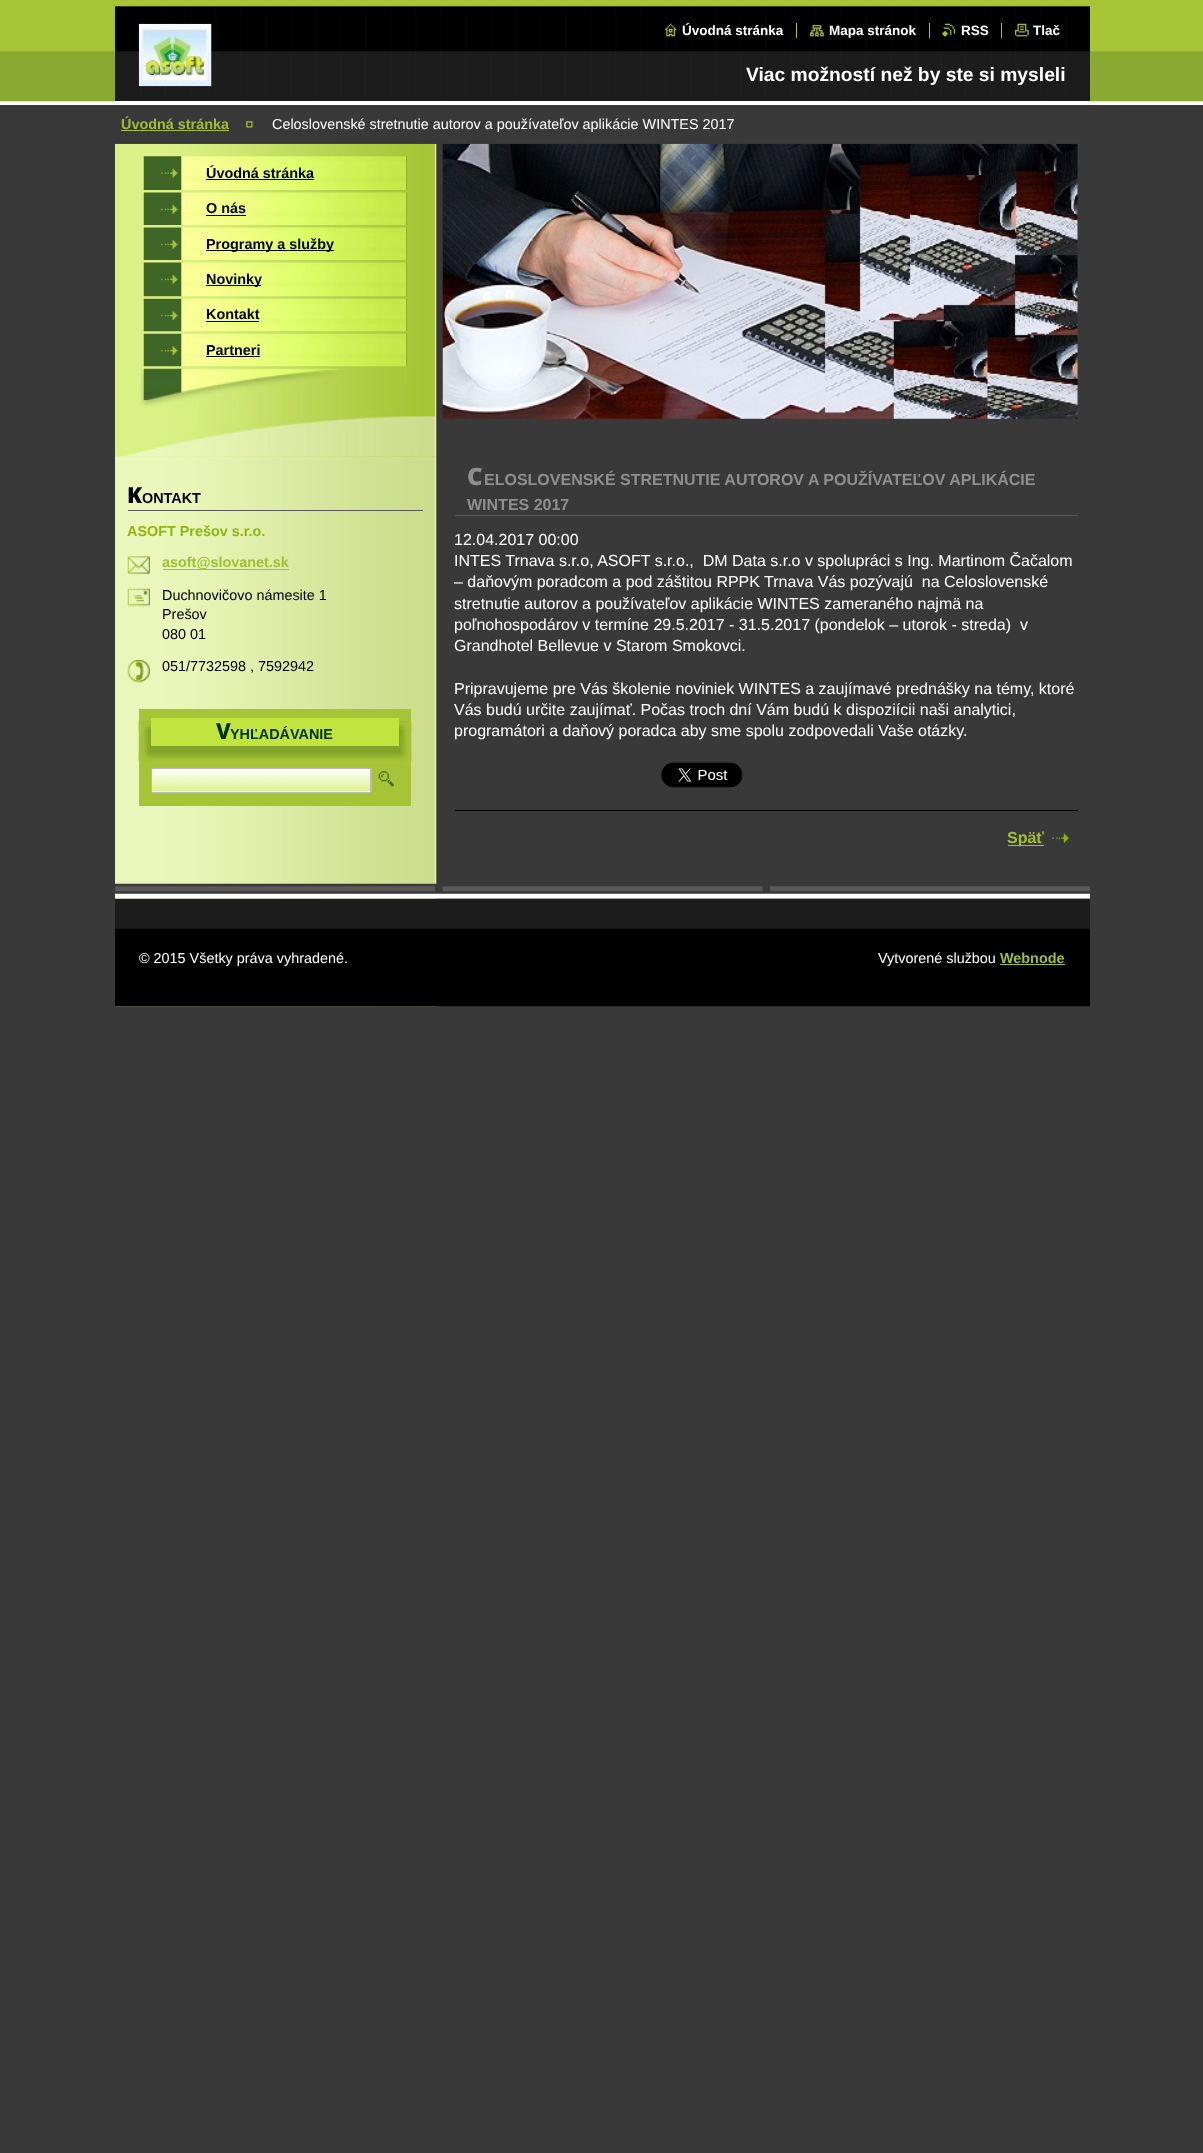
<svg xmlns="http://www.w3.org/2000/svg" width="1203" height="2153">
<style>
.a{font:bold 13.5px Liberation Sans;fill:#fff}
.b{font:bold 19.25px Liberation Sans;fill:#fff}
.c{font:bold 14.4px Liberation Sans;fill:#a2be36}
.d{font:14.4px Liberation Sans;fill:#fff}
.e{font:bold 14.4px Liberation Sans;fill:#000}
.f{font:900 22px Noto Sans;fill:#000}
.g{font:bold 14.4px Liberation Sans;fill:#90b510}
.h{font:14.4px Liberation Sans;fill:#000}
.i{font:800 22px Noto Sans;fill:#030}
.j{font:bold 14.4px Liberation Sans;fill:#030}
.k{font:900 24px Noto Sans;fill:#8f8f8f}
.l{font:bold 16px Liberation Sans;fill:#8f8f8f}
.m{font:16px Liberation Sans;fill:#fff}
.n{font:bold 16px Liberation Sans;fill:#a2be36}
</style>
<rect width="100%" height="100%" fill="#393939"/>
<image href="1.png" x="0" y="0" width="1203" height="105"/>
<image href="2.png" x="115" y="144" width="322" height="863"/>
<image href="3.png" x="115" y="0" width="975" height="101"/>
<path fill="#fff" d="M115 101h975v1H115z"/>
<image href="4.png" x="138" y="23" width="74" height="64"/>
<image href="5.png" x="664" y="23" width="13" height="14"/>
<image href="6.png" x="810" y="24" width="14" height="13"/>
<path fill="#a7c436" d="M796 23h1v15H796z"/>
<image href="7.png" x="942" y="23" width="14" height="14"/>
<path fill="#a7c436" d="M929 23h1v15H929z"/>
<image href="8.png" x="1015" y="23" width="14" height="14"/>
<path fill="#a7c436" d="M1001 23h1v15H1001z"/>
<path fill="#a2be36" d="M121 130h108v1H121z"/>
<image href="9.png" x="246" y="121" width="7" height="7"/>
<image href="10.png" x="115" y="143" width="320" height="314"/>
<image href="11.png" x="143" y="156" width="264" height="34"/>
<image href="12.png" x="161" y="168" width="17" height="10"/>
<path fill="#000" d="M206 179h108v1H206z"/>
<image href="13.png" x="143" y="192" width="264" height="33"/>
<image href="14.png" x="161" y="204" width="17" height="10"/>
<path fill="#000" d="M206 215h40v1H206z"/>
<image href="15.png" x="143" y="227" width="264" height="33"/>
<image href="14.png" x="161" y="239" width="17" height="10"/>
<path fill="#000" d="M206 250h128v1H206z"/>
<image href="16.png" x="143" y="262" width="264" height="35"/>
<image href="14.png" x="161" y="274" width="17" height="10"/>
<path fill="#000" d="M206 285h55v1H206z"/>
<image href="17.png" x="143" y="298" width="264" height="34"/>
<image href="18.png" x="161" y="311" width="17" height="9"/>
<path fill="#000" d="M206 321h53v1H206z"/>
<image href="19.png" x="143" y="333" width="264" height="34"/>
<image href="18.png" x="161" y="346" width="17" height="9"/>
<path fill="#000" d="M206 356h54v1H206z"/>
<image href="20.png" x="115" y="368" width="320" height="89"/>
<path fill="#5c5859" d="M128 510h295v1H128z"/>
<image href="21.png" x="127" y="556" width="23" height="18"/>
<path fill="#a2be36" d="M163 569h126v1H163z"/>
<image href="22.png" x="127" y="588" width="23" height="19"/>
<image href="23.png" x="127" y="660" width="23" height="23"/>
<path fill="#a7c436" d="M139 709h272v97H139z"/>
<path fill="#82a42a" d="M139 721h272v31H139z"/>
<image href="24.png" x="138" y="721" width="274" height="41"/>
<image href="25.png" x="138" y="721" width="274" height="11"/>
<path fill="#c2e43f" d="M151 718h248v28H151z"/>
<image href="26.png" x="138" y="751" width="274" height="11"/>
<path fill="#fff" d="M152 791h218v1H152z"/>
<image href="27.png" x="152" y="768" width="220" height="24"/>
<path fill="none" stroke="#b8b8b8" d="M151.5 768.5h219v24H151.5z"/>
<image href="28.png" x="378" y="771" width="16" height="16"/>
<image href="29.png" x="442" y="143" width="636" height="276"/>
<path fill="#5a5859" d="M455 515h623v1H455z"/>
<image href="30.png" x="661" y="762" width="82" height="26"/>
<path fill="#000" d="M455 810h623v1H455z"/>
<path fill="#a2be36" d="M1008 845h36v1H1008z"/>
<image href="31.png" x="1052" y="833" width="17" height="10"/>
<image href="32.png" x="115" y="883" width="975" height="16"/>
<image href="33.png" x="115" y="898" width="975" height="109"/>
<path fill="#a2be36" d="M1000 964h65v1H1000z"/>
<text class="a" x="682" y="35">Úvodná stránka</text>
<text class="a" x="829" y="35">Mapa stránok</text>
<text class="a" x="961" y="35">RSS</text>
<text class="a" x="1033" y="35">Tlač</text>
<text class="b" x="746" y="81">Viac možností než by ste si mysleli</text>
<text class="c" x="121" y="129">Úvodná stránka</text>
<text class="d" x="272" y="129">Celoslovenské stretnutie autorov a používateľov aplikácie WINTES 2017</text>
<text class="e" x="206" y="178">Úvodná stránka</text>
<text class="e" x="206" y="213">O nás</text>
<text class="e" x="206" y="249">Programy a služby</text>
<text class="e" x="206" y="284">Novinky</text>
<text class="e" x="206" y="319">Kontakt</text>
<text class="e" x="206" y="355">Partneri</text>
<text class="f" x="127" y="503">K</text>
<text class="e" x="142" y="503">ONTAKT</text>
<text class="g" x="127" y="536">ASOFT Prešov s.r.o.</text>
<text class="c" x="162" y="567">asoft@slovanet.sk</text>
<text class="h" x="162" y="600">Duchnovičovo námesite 1</text>
<text class="h" x="162" y="619">Prešov</text>
<text class="h" x="162" y="639">080 01</text>
<text class="h" x="162" y="671">051/7732598 , 7592942</text>
<text class="i" x="216" y="739">V</text>
<text class="j" x="230" y="739">YHĽADÁVANIE</text>
<text class="k" x="467" y="485">C</text>
<text class="l" x="484" y="485">ELOSLOVENSKÉ STRETNUTIE AUTOROV A POUŽÍVATEĽOV APLIKÁCIE</text>
<text class="l" x="467" y="510">WINTES 2017</text>
<text class="m" x="454" y="545">12.04.2017 00:00</text>
<text class="m" xml:space="preserve" x="454" y="566">INTES Trnava s.r.o, ASOFT s.r.o.,  DM Data s.r.o v spolupráci s Ing. Martinom Čačalom</text>
<text class="m" xml:space="preserve" x="454" y="587">– daňovým poradcom a pod záštitou RPPK Trnava Vás pozývajú  na Celoslovenské</text>
<text class="m" x="454" y="609">stretnutie autorov a používateľov aplikácie WINTES zameraného najmä na</text>
<text class="m" xml:space="preserve" x="454" y="630">poľnohospodárov v termíne 29.5.2017 - 31.5.2017 (pondelok – utorok - streda)  v</text>
<text class="m" x="454" y="651">Grandhotel Bellevue v Starom Smokovci.</text>
<text class="m" x="454" y="694">Pripravujeme pre Vás školenie noviniek WINTES a zaujímavé prednášky na témy, ktoré</text>
<text class="m" x="454" y="715">Vás budú určite zaujímať. Počas troch dní Vám budú k dispoziícii naši analytici,</text>
<text class="m" x="454" y="736">programátori a daňový poradca aby sme spolu zodpovedali Vaše otázky.</text>
<text class="n" x="1007" y="843">Späť</text>
<text class="d" x="139" y="963">© 2015 Všetky práva vyhradené.</text>
<text class="d" x="878" y="963">Vytvorené službou</text>
<text class="c" x="1000" y="963">Webnode</text>
</svg>
